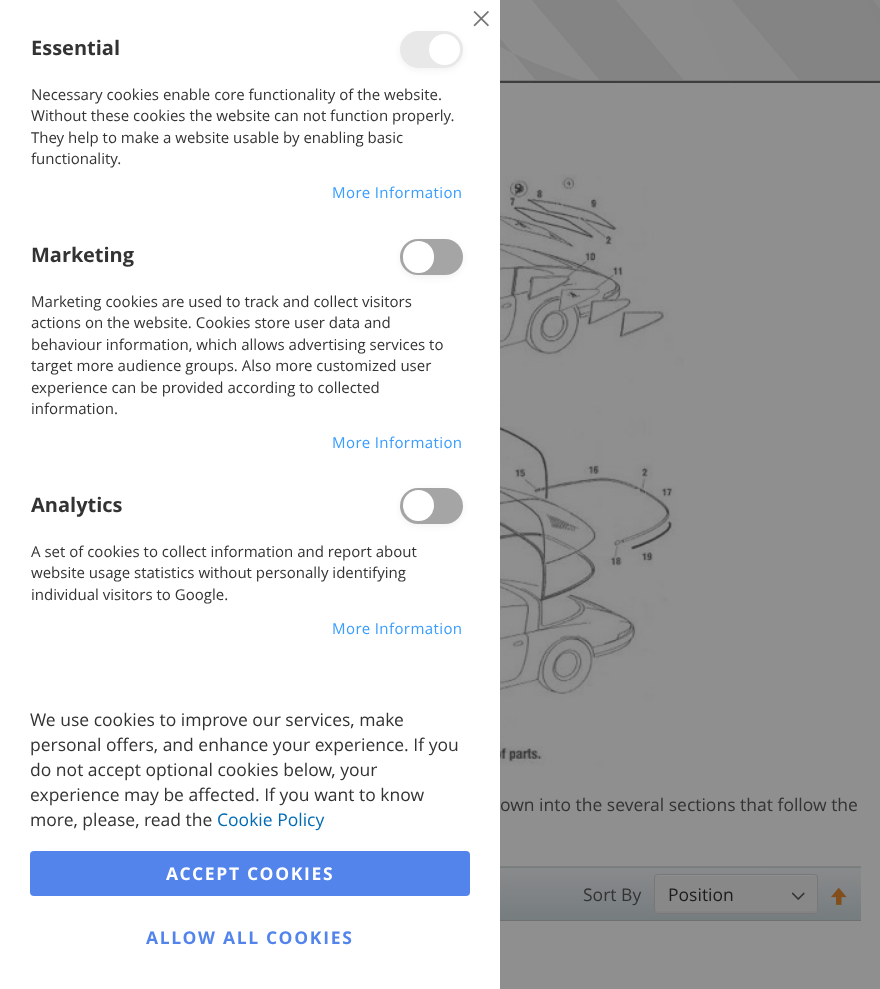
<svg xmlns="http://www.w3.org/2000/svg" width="880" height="989">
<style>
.a{font:bold 20px Open Sans;fill:#333}
.b{font:15px Open Sans;fill:#333}
.c{font:15px Open Sans;letter-spacing:0.4px;fill:#389dfe}
.d{font:17.5px Open Sans;fill:#333}
.e{font:17.5px Open Sans;fill:#006bb4}
.f{font:bold 17.5px Open Sans;letter-spacing:1.7px;fill:#fff}
.g{font:bold 17.5px Open Sans;letter-spacing:1.7px;fill:#5384ec}
.h{font:17.5px Open Sans;fill:#1c1c1c}
</style>
<defs>
<linearGradient id="g1" gradientUnits="userSpaceOnUse" x1="440" y1="815" x2="440" y2="868"><stop offset="0" stop-color="#898a8b"/><stop offset="0.37" stop-color="#828587"/><stop offset="1" stop-color="#767d7f"/></linearGradient>
<linearGradient id="g2" gradientUnits="userSpaceOnUse" x1="440" y1="868" x2="440" y2="920"><stop offset="0" stop-color="#898a8b"/><stop offset="0.37" stop-color="#828587"/><stop offset="1" stop-color="#767d7f"/></linearGradient>
</defs>
<rect width="100%" height="100%" fill="#8f8f8f"/>
<path fill="#fff" d="M0 0h500v989H0z"/>
<image href="1.png" x="473" y="11" width="16" height="16"/>
<rect fill="#0000000d" filter="blur(3px)" x="400" y="34" width="63" height="36" rx="18"/>
<rect fill="#e8e8e8" x="400" y="31" width="63" height="37" rx="18.5"/>
<circle fill="#fff" cx="444.5" cy="49.5" r="15.5"/>
<rect fill="#0000000d" filter="blur(3px)" x="400" y="241" width="63" height="37" rx="18.5"/>
<rect fill="#a5a5a5" x="400" y="239" width="63" height="36" rx="18"/>
<rect fill="#fff" x="403" y="241" width="31" height="32" rx="15.5"/>
<rect fill="#0000000d" filter="blur(3px)" x="400" y="490" width="63" height="36" rx="18"/>
<rect fill="#a5a5a5" x="400" y="488" width="63" height="36" rx="18"/>
<circle fill="#fff" cx="418.5" cy="505.5" r="15.5"/>
<rect fill="#5384ec" x="30" y="851" width="440" height="45" rx="4"/>
<image href="2.png" x="500" y="0" width="380" height="80"/>
<path fill="#3d3d3d" d="M500 81h380v2H500z"/>
<path fill="#787878" d="M500 80h380v1H500z"/>
<image href="3.png" x="500" y="82" width="380" height="1"/>
<image href="4.png" x="500" y="174" width="184" height="592"/>
<path fill="url(#g1)" d="M500 867h361v1H500z"/>
<path fill="url(#g2)" d="M500 868h361v52H500z"/>
<path fill="#7f7f7f" d="M500 866h361v1H500z"/>
<path fill="#707070" d="M500 920h361v1H500z"/>
<rect fill="#888" x="654" y="874" width="164" height="40" rx="4"/>
<image href="5.png" x="791" y="892" width="14" height="9"/>
<path fill="#838383" d="M655 909c0 2 0 4 3 4h156c2 0 2-2 2-4c0 1-1 2-2 2h-156c-2 0-3-1-3-2z"/>
<path fill="#8f8f8f" d="M658 876h156c1 0 2 1 2 3c0-2 0-4-2-4h-156c-3 0-3 2-3 4c0-2 1-3 3-3z"/>
<rect fill="none" stroke="#787878" x="654.5" y="874.5" width="163" height="39" rx="3.5"/>
<image href="6.png" x="831" y="887" width="16" height="18"/>
<text class="a" x="31" y="55">Essential</text>
<text class="b" x="31" y="100">Necessary cookies enable core functionality of the website.</text>
<text class="b" x="31" y="121">Without these cookies the website can not function properly.</text>
<text class="b" x="31" y="143">They help to make a website usable by enabling basic</text>
<text class="b" x="31" y="164">functionality.</text>
<text class="c" x="332" y="198">More Information</text>
<text class="a" x="31" y="262">Marketing</text>
<text class="b" x="31" y="307">Marketing cookies are used to track and collect visitors</text>
<text class="b" x="31" y="328">actions on the website. Cookies store user data and</text>
<text class="b" x="31" y="350">behaviour information, which allows advertising services to</text>
<text class="b" x="31" y="371">target more audience groups. Also more customized user</text>
<text class="b" x="31" y="393">experience can be provided according to collected</text>
<text class="b" x="31" y="414">information.</text>
<text class="c" x="332" y="448">More Information</text>
<text class="a" x="31" y="512">Analytics</text>
<text class="b" x="31" y="557">A set of cookies to collect information and report about</text>
<text class="b" x="31" y="578">website usage statistics without personally identifying</text>
<text class="b" x="31" y="600">individual visitors to Google.</text>
<text class="c" x="332" y="634">More Information</text>
<text class="d" x="30" y="726">We use cookies to improve our services, make</text>
<text class="d" x="30" y="751">personal offers, and enhance your experience. If you</text>
<text class="d" x="30" y="776">do not accept optional cookies below, your</text>
<text class="d" x="30" y="801">experience may be affected. If you want to know</text>
<text class="d" x="30" y="826">more, please, read the</text>
<text class="e" x="217" y="826">Cookie Policy</text>
<text class="f" x="166" y="880">ACCEPT COOKIES</text>
<text class="g" x="146" y="944">ALLOW ALL COOKIES</text>
<text class="d" x="500" y="811">own into the several sections that follow the</text>
<text class="d" x="583" y="901">Sort By</text>
<text class="h" x="668" y="901">Position</text>
</svg>
